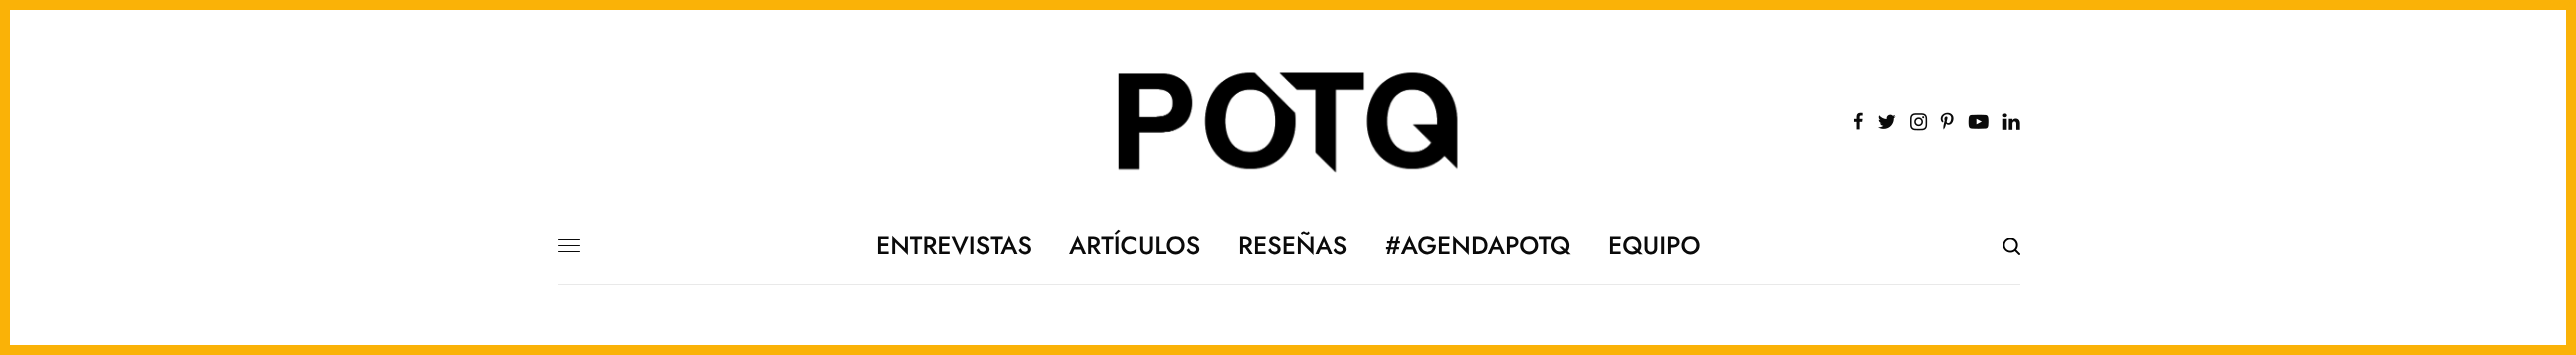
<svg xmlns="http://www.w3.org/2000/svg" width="2576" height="355">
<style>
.a{font:500 25px Jost;fill:#0a0a0a}
</style>
<rect width="100%" height="100%" fill="#fff"/>
<image href="1.png" x="1118" y="72" width="340" height="101"/>
<image href="2.png" x="1853" y="112" width="10" height="18"/>
<image href="3.png" x="1878" y="114" width="18" height="15"/>
<image href="4.png" x="1910" y="113" width="18" height="18"/>
<image href="5.png" x="1940" y="112" width="14" height="18"/>
<image href="6.png" x="1968" y="114" width="21" height="15"/>
<image href="7.png" x="2002" y="113" width="18" height="17"/>
<path fill="#e9e9e9" d="M558 284h1462v1H558z"/>
<rect fill="#0a0a0a" x="558" y="239" width="22" height="1" rx="0.5"/>
<rect fill="#0a0a0a" x="558" y="245" width="22" height="1" rx="0.5"/>
<rect fill="#0a0a0a" x="558" y="251" width="22" height="1" rx="0.5"/>
<image href="8.png" x="2003" y="238" width="17" height="17"/>
<path fill="none" stroke="#fab207" stroke-width="10" d="M5 5h2566v345H5z"/>
<text class="a" x="876" y="254">ENTREVISTAS</text>
<text class="a" x="1069" y="254">ARTÍCULOS</text>
<text class="a" x="1238" y="254">RESEÑAS</text>
<text class="a" x="1385" y="254">#AGENDAPOTQ</text>
<text class="a" x="1608" y="254">EQUIPO</text>
</svg>
